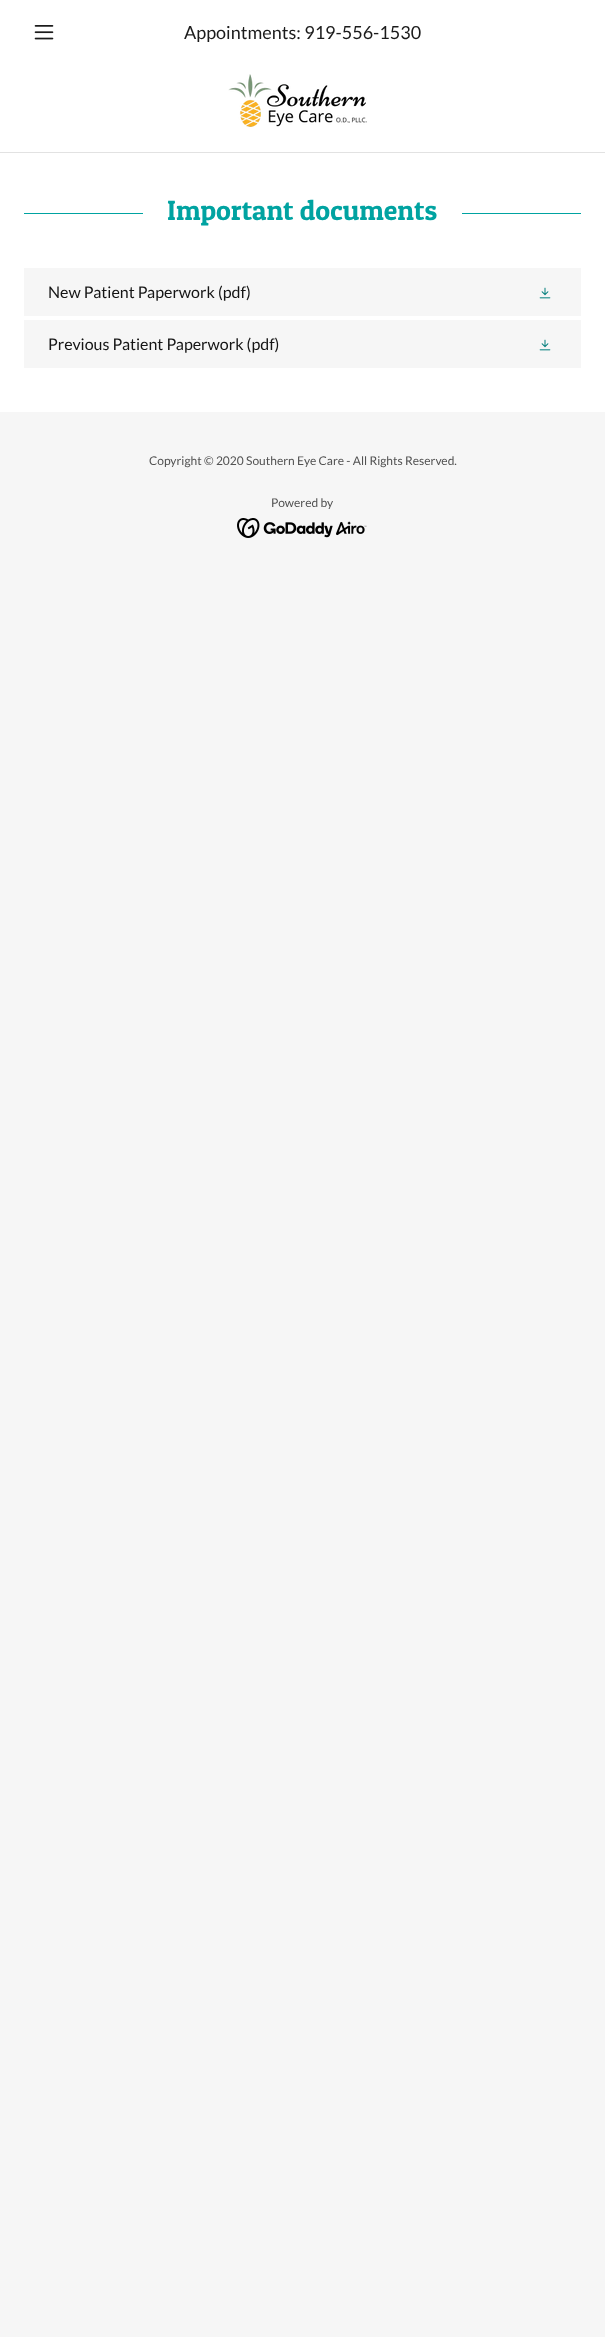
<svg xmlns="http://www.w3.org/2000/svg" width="605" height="2337">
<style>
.a{font:18px Lato;fill:#1b1b1b}
.b{font:28px Patua One;fill:#00a3a1}
.c{font:16px Lato;fill:#151515}
.d{font:12px Lato;fill:#525252}
</style>
<rect width="100%" height="100%" fill="#f6f6f6"/>
<path fill="#fff" d="M0 0h605v152H0z"/>
<image href="1.png" x="34" y="25" width="20" height="15"/>
<image href="2.png" x="228" y="74" width="139" height="53"/>
<path fill="#e2e2e2" d="M0 152h605v1H0z"/>
<path fill="#fff" d="M0 153h605v259H0z"/>
<path fill="#00a3a1" d="M24 213h119v1H24z"/>
<path fill="#00a3a1" d="M462 213h119v1H462z"/>
<path fill="#f6f6f6" d="M24 268h557v48H24z"/>
<image href="3.png" x="539" y="287" width="12" height="12"/>
<path fill="#f6f6f6" d="M24 320h557v48H24z"/>
<image href="3.png" x="539" y="339" width="12" height="12"/>
<image href="4.png" x="237" y="518" width="130" height="20"/>
<text class="a" x="184" y="39">Appointments: 919-556-1530</text>
<text class="b" x="167" y="220">Important documents</text>
<text class="c" x="48" y="298">New Patient Paperwork (pdf)</text>
<text class="c" x="48" y="350">Previous Patient Paperwork (pdf)</text>
<text class="d" x="149" y="465">Copyright © 2020 Southern Eye Care - All Rights Reserved.</text>
<text class="d" x="271" y="507">Powered by</text>
</svg>
